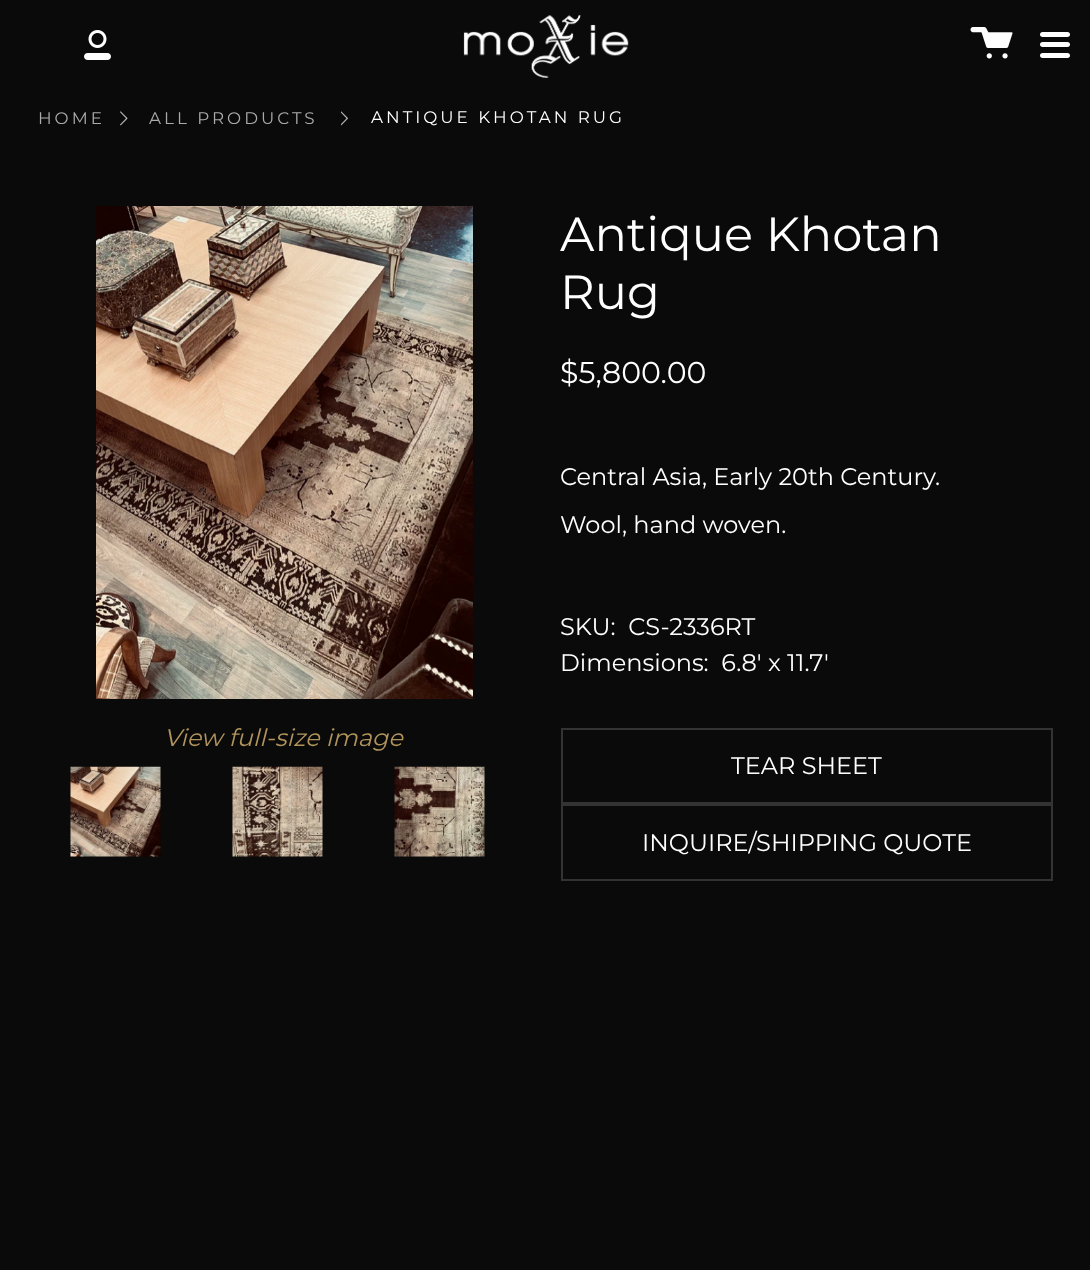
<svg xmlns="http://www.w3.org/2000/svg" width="1090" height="1270">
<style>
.a{font:100 16.75px Montserrat;letter-spacing:3px;fill:#ababab}
.b{font:100 16.75px Montserrat;letter-spacing:3px;fill:#fff}
.c{font:italic 100 24px Montserrat;fill:#b1945c}
.d{font:100 48px Montserrat;fill:#fff}
.e{font:100 30px Montserrat;fill:#fff}
.f{font:100 24px Montserrat;fill:#fff}
</style>
<rect width="100%" height="100%" fill="#0a0a0a"/>
<image href="1.png" x="463" y="15" width="166" height="63"/>
<image href="2.png" x="84" y="30" width="27" height="30"/>
<image href="3.png" x="970" y="27" width="43" height="32"/>
<path fill="#fff" d="M1042.5 32h22.5v5h-22.5c-1.5 0-2.5-1-2.5-2.5c0-1.5 1-2.5 2.5-2.5z"/>
<path fill="#fff" d="M1044 32h23.5c1.5 0 2.5 1 2.5 2.5c0 1.5-1 2.5-2.5 2.5h-23.5z"/>
<path fill="#fff" d="M1042.5 42h22.5v5h-22.5c-1.5 0-2.5-1-2.5-2.5c0-1.5 1-2.5 2.5-2.5z"/>
<path fill="#fff" d="M1044 42h23.5c1.5 0 2.5 1 2.5 2.5c0 1.5-1 2.5-2.5 2.5h-23.5z"/>
<path fill="#fff" d="M1042.5 53h22.5v5h-22.5c-1.5 0-2.5-1-2.5-2.5c0-1.5 1-2.5 2.5-2.5z"/>
<path fill="#fff" d="M1044 53h23.5c1.5 0 2.5 1 2.5 2.5c0 1.5-1 2.5-2.5 2.5h-23.5z"/>
<image href="4.png" x="120" y="111" width="8" height="15"/>
<image href="5.png" x="341" y="111" width="7" height="15"/>
<image href="6.png" x="96" y="206" width="377" height="493"/>
<image href="7.png" x="70" y="766" width="91" height="91"/>
<image href="8.png" x="232" y="766" width="91" height="91"/>
<image href="9.png" x="394" y="766" width="91" height="91"/>
<path fill="none" stroke="#333" stroke-width="2" d="M562 729h490v74H562z"/>
<path fill="none" stroke="#333" stroke-width="2" d="M562 805h490v75H562z"/>
<text class="a" x="38" y="124">HOME</text>
<text class="a" x="149" y="124">ALL PRODUCTS</text>
<text class="b" x="371" y="123">ANTIQUE KHOTAN RUG</text>
<text class="c" x="164" y="746">View full-size image</text>
<text class="d" x="560" y="251">Antique Khotan</text>
<text class="d" x="560" y="309">Rug</text>
<text class="e" x="560" y="383">$5,800.00</text>
<text class="f" x="560" y="485">Central Asia, Early 20th Century.</text>
<text class="f" x="560" y="533">Wool, hand woven.</text>
<text class="f" xml:space="preserve" x="560" y="635">SKU:  CS-2336RT</text>
<text class="f" xml:space="preserve" x="560" y="671">Dimensions:  6.8' x 11.7'</text>
<text class="f" x="731" y="774">TEAR SHEET</text>
<text class="f" x="642" y="851">INQUIRE/SHIPPING QUOTE</text>
</svg>
